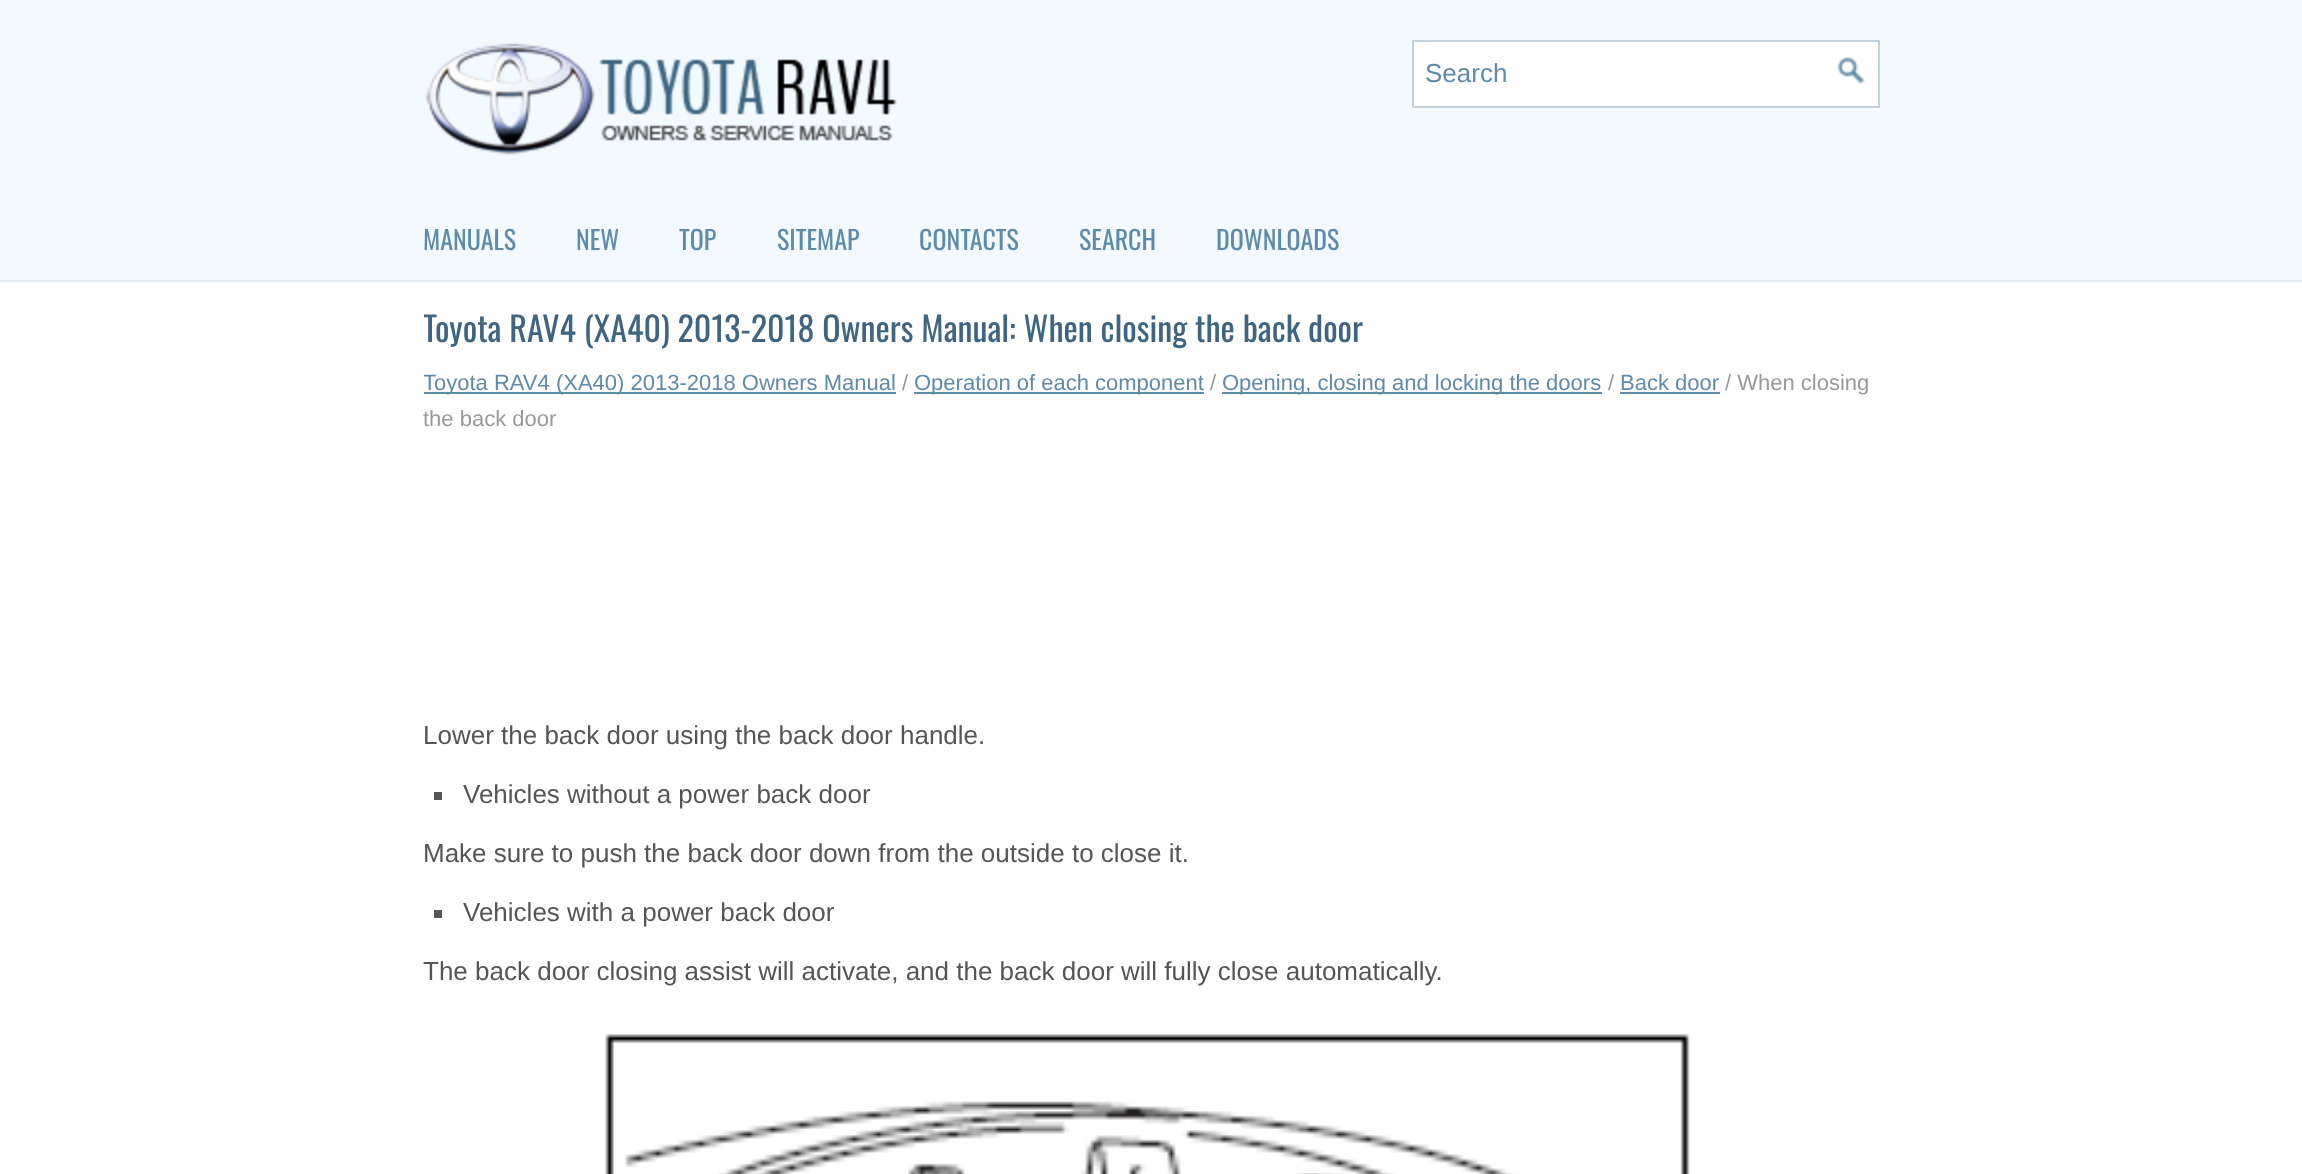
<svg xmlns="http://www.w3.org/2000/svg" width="2302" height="1174">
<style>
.a{font:26px Liberation Sans;fill:#5f8baa}
.b{font:26px Oswald;fill:#5f8baa}
.c{font:34px Oswald;fill:#3e6581}
.d{font:22px Liberation Sans;fill:#5f8baa}
.e{font:22px Liberation Sans;fill:#999}
.f{font:26px Liberation Sans;fill:#555}
</style>
<defs>
<clipPath id="clip1"><path d="M424 280h1456v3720H424z"/></clipPath>
</defs>
<rect width="100%" height="100%" fill="#fff"/>
<path fill="#e2ebf1" d="M0 280h2302v2H0z"/>
<path fill="#f3faff" d="M0 0h2302v280H0z"/>
<image href="1.png" x="425" y="43" width="472" height="112"/>
<path fill="#fff" stroke="#c2d1db" stroke-width="2" d="M1413 41h466v66H1413z"/>
<image href="2.png" x="1837" y="57" width="28" height="28"/>
<path fill="#5f8baa" d="M424 392h472v2H424z"/>
<path fill="#5f8baa" d="M914 392h290v2H914z"/>
<path fill="#5f8baa" d="M1222 392h380v2H1222z"/>
<path fill="#5f8baa" d="M1620 392h100v2H1620z"/>
<path fill="#555" d="M434 792h8v8H434z"/>
<path fill="#555" d="M434 910h8v8H434z"/>
<image href="3.png" x="605" y="1034" width="1085" height="140"/>
<text class="a" x="1425" y="82">Search</text>
<text class="b" x="423" y="250">MANUALS</text>
<text class="b" x="576" y="250">NEW</text>
<text class="b" x="679" y="250">TOP</text>
<text class="b" x="777" y="250">SITEMAP</text>
<text class="b" x="919" y="250">CONTACTS</text>
<text class="b" x="1079" y="250">SEARCH</text>
<text class="b" x="1216" y="250">DOWNLOADS</text>
<g clip-path="url(#clip1)">
<text class="c" x="423" y="342">Toyota RAV4 (XA40) 2013-2018 Owners Manual: When closing the back door</text>
<text class="d" x="423" y="390">Toyota RAV4 (XA40) 2013-2018 Owners Manual</text>
</g>
<text class="e" x="902" y="390">/</text>
<text class="d" x="914" y="390">Operation of each component</text>
<text class="e" x="1210" y="390">/</text>
<text class="d" x="1222" y="390">Opening, closing and locking the doors</text>
<text class="e" x="1608" y="390">/</text>
<text class="d" x="1620" y="390">Back door</text>
<text class="e" x="1725" y="390">/ When closing</text>
<text class="e" x="423" y="426">the back door</text>
<text class="f" x="423" y="744">Lower the back door using the back door handle.</text>
<text class="f" x="463" y="803">Vehicles without a power back door</text>
<text class="f" x="423" y="862">Make sure to push the back door down from the outside to close it.</text>
<text class="f" x="463" y="921">Vehicles with a power back door</text>
<text class="f" x="423" y="980">The back door closing assist will activate, and the back door will fully close automatically.</text>
</svg>
